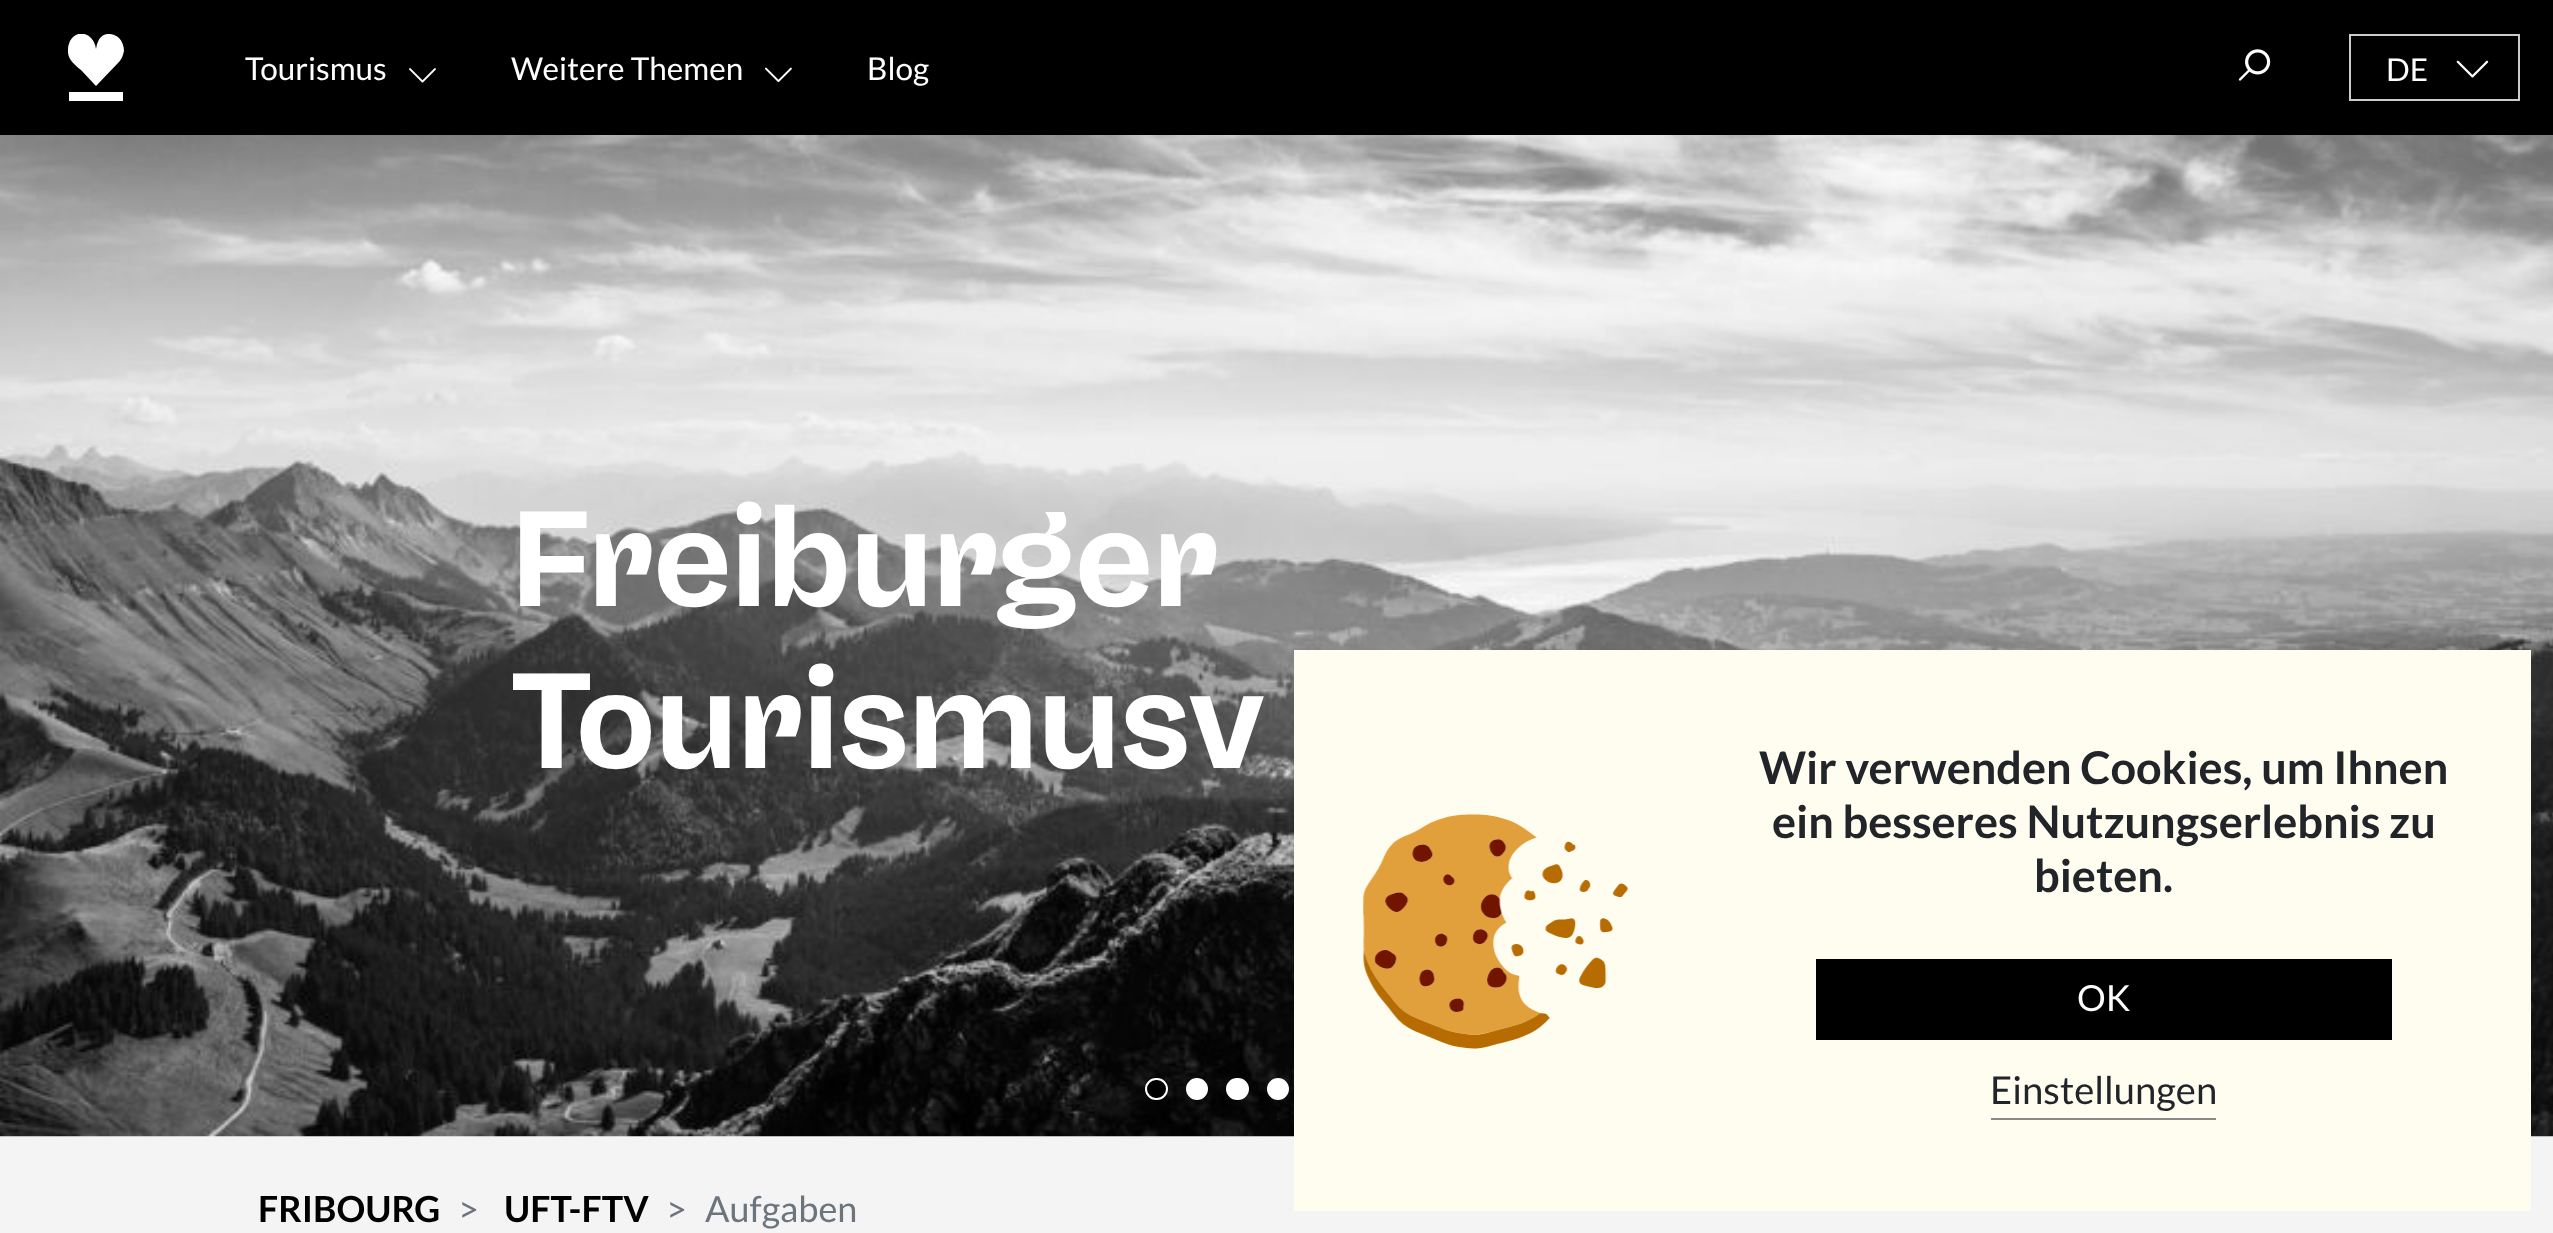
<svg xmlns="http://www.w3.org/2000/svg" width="2553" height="1233">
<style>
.a{font:31.5px Lato;fill:#fff}
.b{font:bold 135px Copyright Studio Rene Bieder;fill:#fff}
.c{font:bold 36px Lato;fill:#000}
.d{font:36px Lato;fill:#6c757d}
.e{font:bold 45px Lato;fill:#212529}
.f{font:36px Lato;fill:#fff}
.g{font:38.25px Lato;fill:#212529}
</style>
<defs>
<clipPath id="clip1"><path d="M68 34h56v67H68z"/></clipPath>
</defs>
<rect width="100%" height="100%" fill="#f4f4f4"/>
<path fill="#000" d="M0 0h2553v135H0z"/>
<g clip-path="url(#clip1)">
<path fill="#fff" d="M96 49c-2-16-19-21-26-8c-1 2-2 5-2 8c-1 10 6 15 13 21l15 16l22-23c5-5 5-9 6-12c0-5-2-10-5-13c-2-2-6-4-10-4c-5 0-11 2-13 15"/>
</g>
<path fill="#fff" d="M69 92h54v9H69z"/>
<image href="1.png" x="409" y="68" width="27" height="15"/>
<image href="2.png" x="765" y="67" width="27" height="16"/>
<image href="3.png" x="2238" y="49" width="33" height="32"/>
<path fill="none" stroke="#ccc" stroke-width="2" d="M2350 35h169v65H2350z"/>
<image href="4.png" x="2456" y="60" width="33" height="18"/>
<image href="5.png" x="0" y="135" width="2553" height="1002"/>
<rect fill="#000" stroke="#fff" stroke-width="2" x="1146" y="1079" width="21" height="20" rx="10"/>
<circle fill="#fff" stroke="#fff" stroke-width="2" cx="1197" cy="1089" r="10"/>
<rect fill="#fff" stroke="#fff" stroke-width="2" x="1227" y="1079" width="21" height="20" rx="10"/>
<circle fill="#fff" stroke="#fff" stroke-width="2" cx="1278" cy="1089" r="10"/>
<path fill="#fffcf0" d="M1294 650h1237v561H1294z"/>
<image href="6.png" x="1363" y="814" width="266" height="235"/>
<path fill="#000" d="M1816 959h576v81H1816z"/>
<path fill="#888" d="M1991 1118h225v2H1991z"/>
<text class="a" x="245" y="80">Tourismus</text>
<text class="a" x="511" y="80">Weitere Themen</text>
<text class="a" x="867" y="80">Blog</text>
<text class="a" x="2386" y="81">DE</text>
<text class="b" x="511" y="606">Freiburger</text>
<text class="b" x="511" y="768">Tourismusv</text>
<text class="c" x="258" y="1222">FRIBOURG</text>
<text class="d" x="458" y="1222">&gt;</text>
<text class="c" x="504" y="1222">UFT-FTV</text>
<text class="d" x="666" y="1222">&gt;</text>
<text class="d" x="705" y="1222">Aufgaben</text>
<text class="e" x="1759" y="784">Wir verwenden Cookies, um Ihnen</text>
<text class="e" x="1772" y="838">ein besseres Nutzungserlebnis zu</text>
<text class="e" x="2034" y="892">bieten.</text>
<text class="f" x="2077" y="1011">OK</text>
<text class="g" x="1990" y="1104">Einstellungen</text>
</svg>
